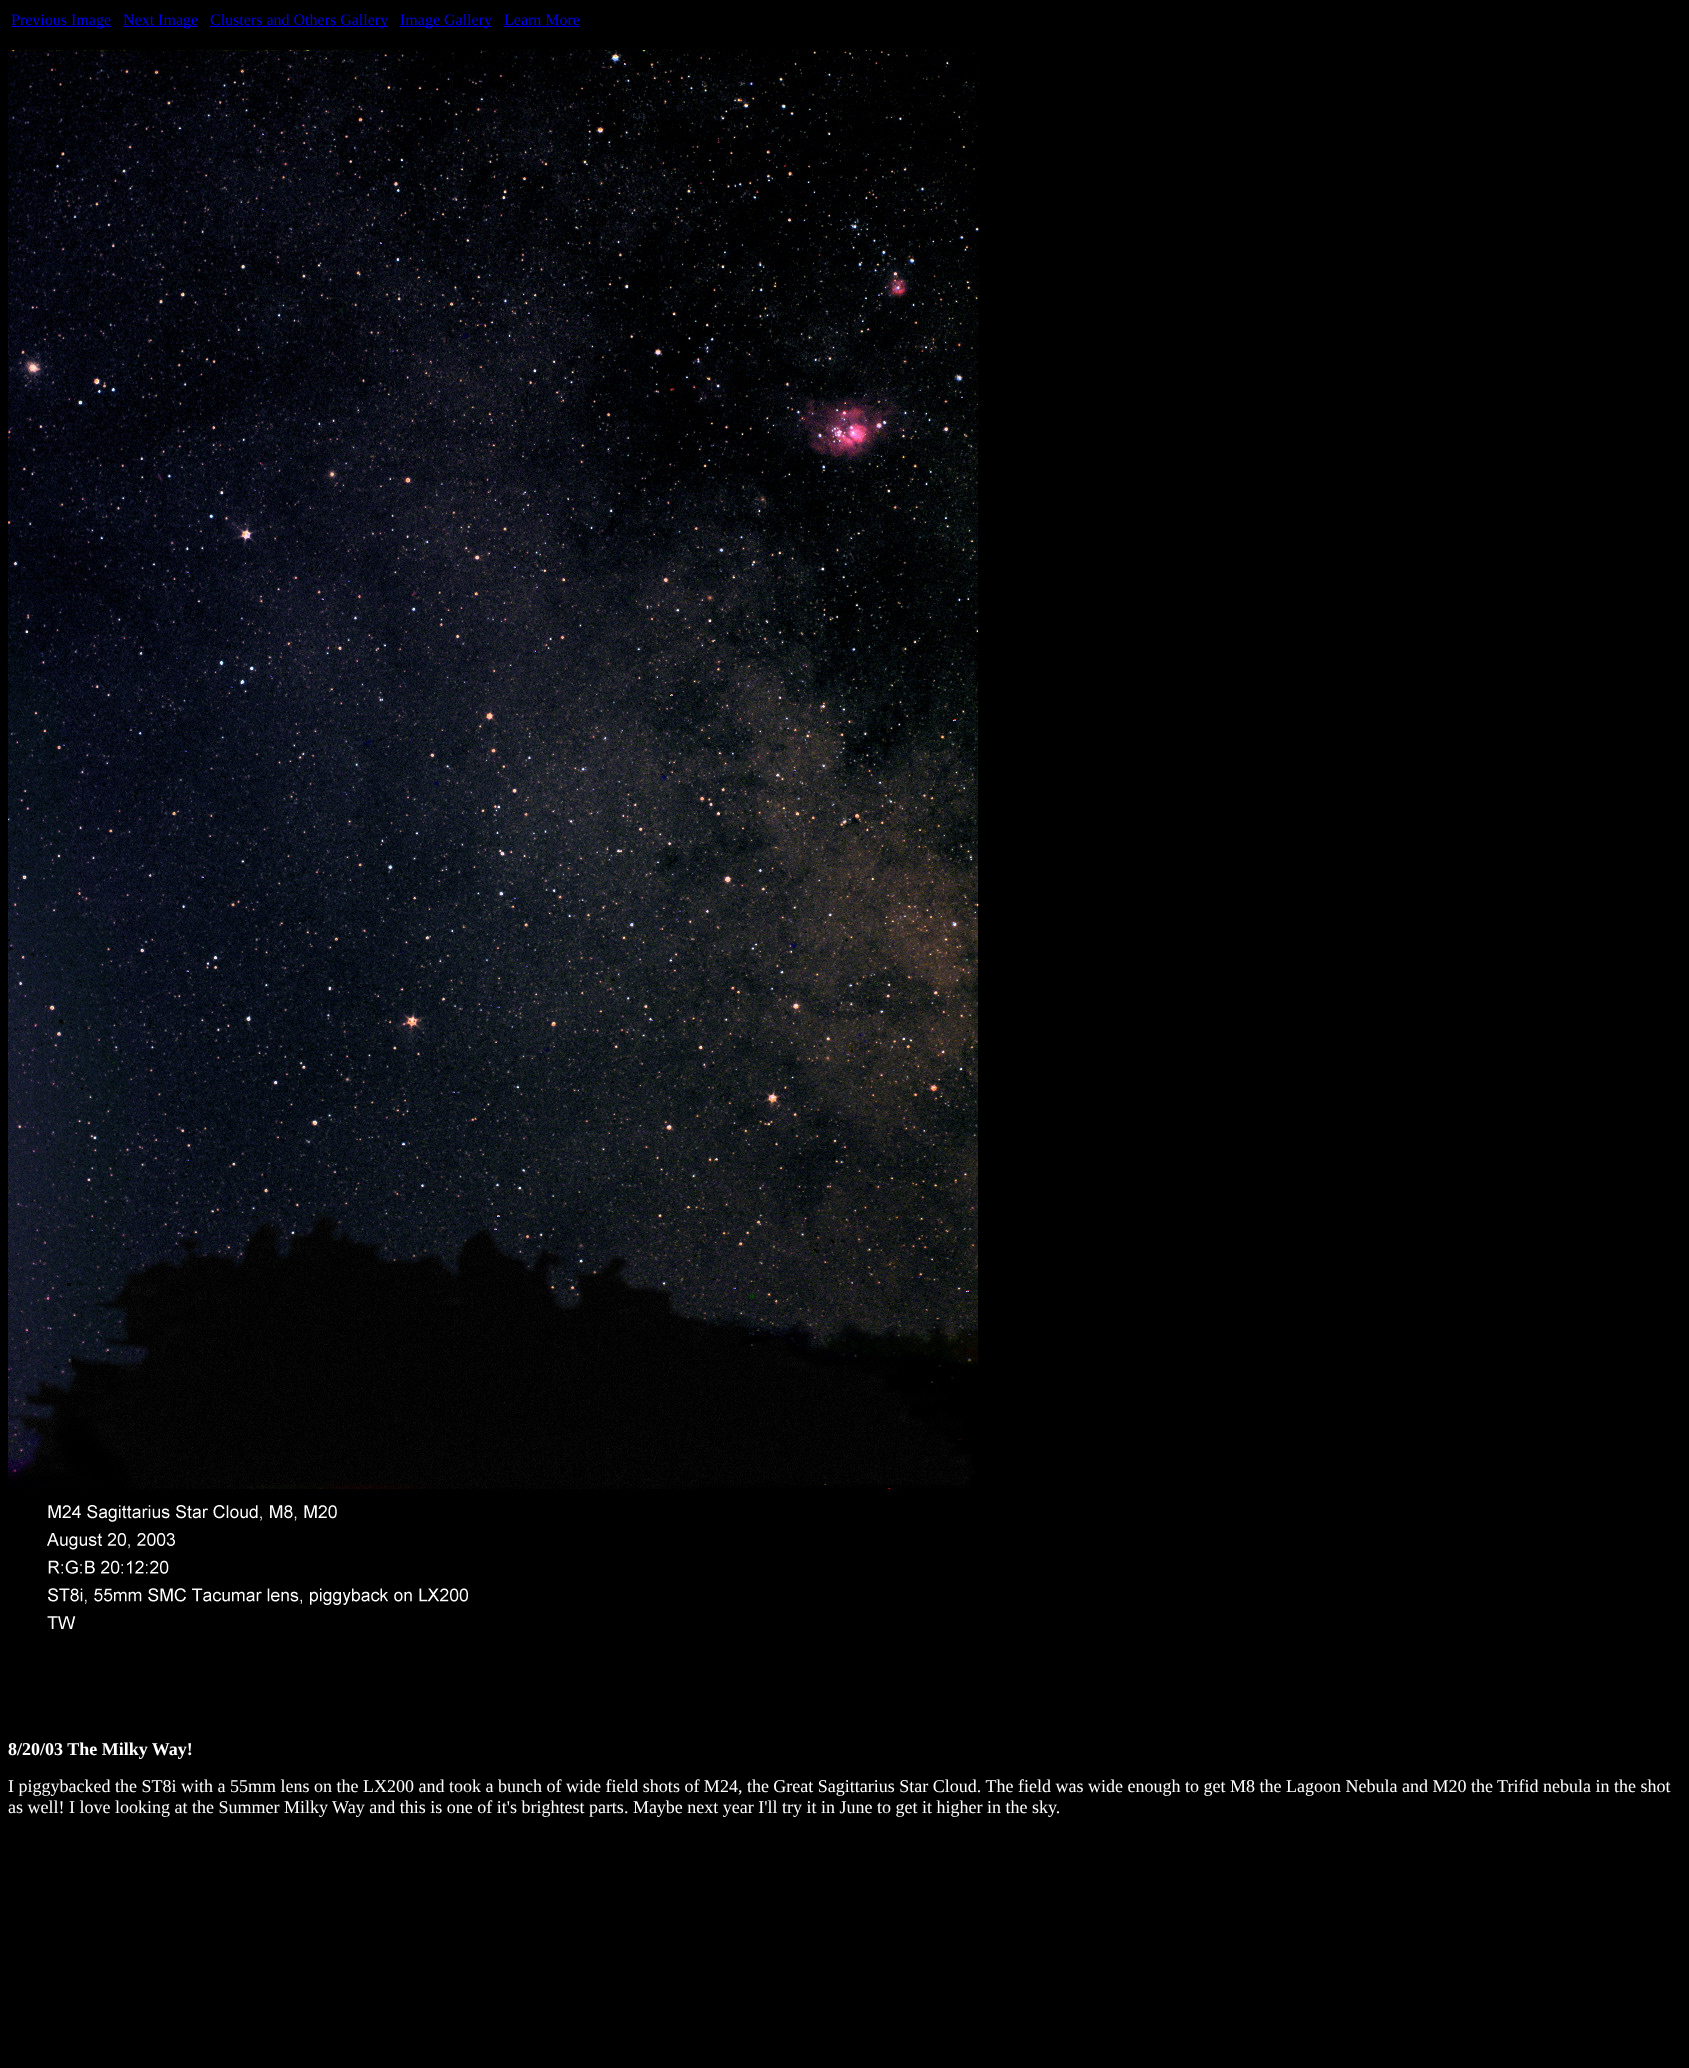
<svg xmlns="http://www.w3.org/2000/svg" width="1689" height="2068">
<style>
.a{font:16px Liberation Serif;fill:#00e}
.b{font:bold 18px Liberation Serif;fill:#fff}
.c{font:18px Liberation Serif;fill:#fff}
</style>
<rect width="100%" height="100%" fill="#000"/>
<path fill="#00e" d="M11 26h100v1H11z"/>
<path fill="#00e" d="M123 26h75v1H123z"/>
<path fill="#00e" d="M210 26h178v1H210z"/>
<path fill="#00e" d="M400 26h92v1H400z"/>
<path fill="#00e" d="M504 26h76v1H504z"/>
<image href="1.png" x="8" y="48" width="972" height="1584"/>
<text class="a" x="11" y="25">Previous Image</text>
<text class="a" x="123" y="25">Next Image</text>
<text class="a" x="210" y="25">Clusters and Others Gallery</text>
<text class="a" x="400" y="25">Image Gallery</text>
<text class="a" x="504" y="25">Learn More</text>
<text class="b" x="8" y="1755">8/20/03 The Milky Way!</text>
<text class="c" x="8" y="1792">I piggybacked the ST8i with a 55mm lens on the LX200 and took a bunch of wide field shots of M24, the Great Sagittarius Star Cloud. The field was wide enough to get M8 the Lagoon Nebula and M20 the Trifid nebula in the shot</text>
<text class="c" x="8" y="1813">as well! I love looking at the Summer Milky Way and this is one of it's brightest parts. Maybe next year I'll try it in June to get it higher in the sky.</text>
</svg>
